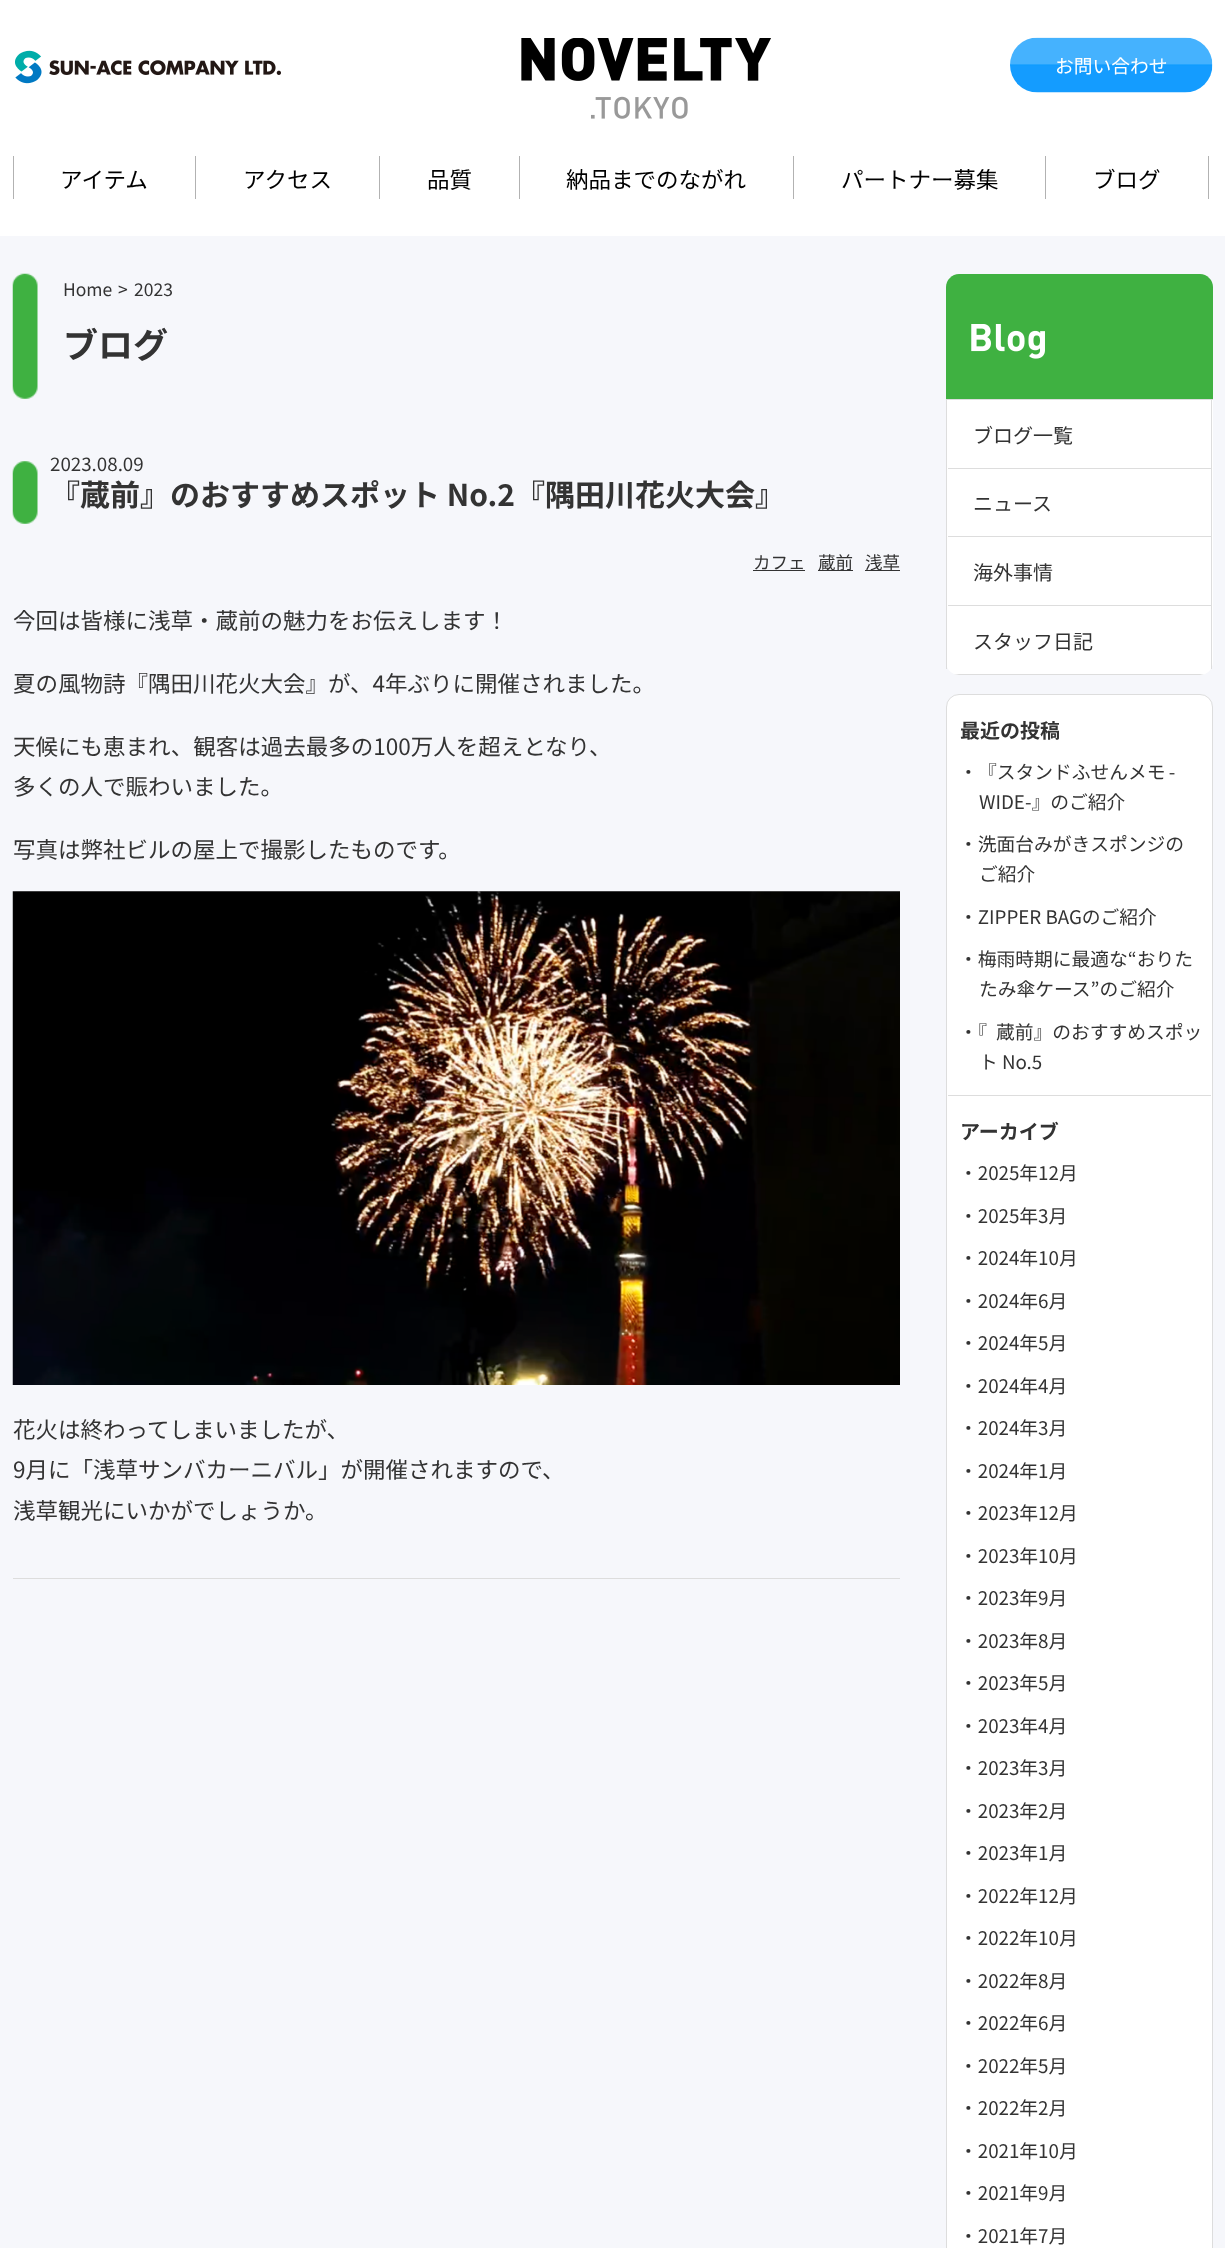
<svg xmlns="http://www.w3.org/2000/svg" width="1225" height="2248">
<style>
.a{font:18.75px Noto Sans JP;fill:#fff}
.b{font:22.5px Noto Sans JP;fill:#000}
.c{font:17.5px Noto Sans JP;fill:#333}
.d{font:bold 35px Noto Sans JP;fill:#333}
.e{font:18.75px Noto Sans JP;fill:#333}
.f{font:bold 30px Noto Sans JP;fill:#333}
.g{font:22.5px Noto Sans JP;fill:#333}
.h{font:20px Noto Sans JP;fill:#333}
.i{font:bold 20px Noto Sans JP;fill:#333}
</style>
<rect width="100%" height="100%" fill="#f6f7fb"/>
<path fill="#fff" d="M0 0h1225v236H0z"/>
<image href="1.png" x="15" y="50" width="266" height="34"/>
<image href="2.png" x="521" y="38" width="250" height="81"/>
<image href="3.png" x="1010" y="37" width="203" height="56"/>
<path fill="#b2b2b2" d="M13 156h1v43H13z"/>
<path fill="#b2b2b2" d="M195 156h1v43H195z"/>
<path fill="#b2b2b2" d="M379 156h1v43H379z"/>
<path fill="#b2b2b2" d="M519 156h1v43H519z"/>
<path fill="#b2b2b2" d="M793 156h1v43H793z"/>
<path fill="#b2b2b2" d="M1045 156h1v43H1045z"/>
<path fill="#b2b2b2" d="M1208 156h1v43H1208z"/>
<image href="4.png" x="12" y="273" width="26" height="126"/>
<image href="5.png" x="12" y="461" width="26" height="63"/>
<path fill="#333" d="M753 570h52v1H753z"/>
<path fill="#333" d="M818 570h35v1H818z"/>
<path fill="#333" d="M865 570h35v1H865z"/>
<path fill="#ddd" d="M13 1578h887v1H13z"/>
<image href="6.png" x="12" y="891" width="888" height="494"/>
<path fill="#3fb141" d="M959 274h241c7 0 13 6 13 13v112h-267v-112c0-7 6-13 13-13z"/>
<image href="7.png" x="971" y="324" width="74" height="35"/>
<path fill="#fff" d="M946 399h267v263c0 7-6 13-13 13h-241c-7 0-13-6-13-13z"/>
<path fill="#ddd" d="M946 399h267v1H946z"/>
<path fill="#ddd" d="M1211 399h1v270H1211z"/>
<path fill="#ddd" d="M946 399h1v270H946z"/>
<path fill="#ddd" d="M948 468h263v1H948z"/>
<path fill="#ddd" d="M948 536h263v1H948z"/>
<path fill="#ddd" d="M948 605h263v1H948z"/>
<path fill="#ddd" d="M959 675h241l4-1h-250z"/>
<rect fill="#fff" stroke="#ddd" x="946.5" y="694.5" width="266" height="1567" rx="12.5"/>
<path fill="#ddd" d="M948 1095h263v1H948z"/>
<text class="a" x="1055" y="73">お問い合わせ</text>
<text class="b" x="60" y="188">アイテム</text>
<text class="b" x="243" y="188">アクセス</text>
<text class="b" x="427" y="188">品質</text>
<text class="b" x="566" y="188">納品までのながれ</text>
<text class="b" x="841" y="188">パートナー募集</text>
<text class="b" x="1093" y="188">ブログ</text>
<text class="c" x="63" y="296">Home</text>
<text class="c" x="118" y="296">&gt;</text>
<text class="c" x="134" y="296">2023</text>
<text class="d" x="63" y="358">ブログ</text>
<text class="e" x="50" y="471">2023.08.09</text>
<text class="f" x="50" y="506">『蔵前』のおすすめスポット No.2『隅田川花火大会』</text>
<text class="c" x="753" y="569">カフェ</text>
<text class="c" x="818" y="569">蔵前</text>
<text class="c" x="865" y="569">浅草</text>
<text class="g" x="13" y="629">今回は皆様に浅草・蔵前の魅力をお伝えします！</text>
<text class="g" x="13" y="692">夏の風物詩『隅田川花火大会』が、4年ぶりに開催されました。</text>
<text class="g" x="13" y="755">天候にも恵まれ、観客は過去最多の100万人を超えとなり、</text>
<text class="g" x="13" y="795">多くの人で賑わいました。</text>
<text class="g" x="13" y="858">写真は弊社ビルの屋上で撮影したものです。</text>
<text class="g" x="13" y="1438">花火は終わってしまいましたが、</text>
<text class="g" x="13" y="1478">9月に「浅草サンバカーニバル」が開催されますので、</text>
<text class="g" x="13" y="1519">浅草観光にいかがでしょうか。</text>
<text class="h" x="973" y="443">ブログ一覧</text>
<text class="h" x="973" y="511">ニュース</text>
<text class="h" x="973" y="580">海外事情</text>
<text class="h" x="973" y="649">スタッフ日記</text>
<text class="i" x="960" y="738">最近の投稿</text>
<text class="e" x="959" y="779">・</text>
<text class="e" x="978" y="779" word-spacing="-1">『スタンドふせんメモ -</text>
<text class="e" x="979" y="809">WIDE-』のご紹介</text>
<text class="e" x="959" y="851">・洗面台みがきスポンジの</text>
<text class="e" x="979" y="881">ご紹介</text>
<text class="e" x="959" y="924">・ZIPPER BAGのご紹介</text>
<text class="e" x="959" y="966">・梅雨時期に最適な“おりた</text>
<text class="e" x="979" y="996">たみ傘ケース”のご紹介</text>
<text class="e" x="959" y="1039">・『</text>
<text class="e" x="996" y="1039">蔵前』のおすすめスポッ</text>
<text class="e" x="979" y="1069">ト No.5</text>
<text class="i" x="960" y="1139">アーカイブ</text>
<text class="e" x="959" y="1180">・2025年12月</text>
<text class="e" x="959" y="1223">・2025年3月</text>
<text class="e" x="959" y="1265">・2024年10月</text>
<text class="e" x="959" y="1308">・2024年6月</text>
<text class="e" x="959" y="1350">・2024年5月</text>
<text class="e" x="959" y="1393">・2024年4月</text>
<text class="e" x="959" y="1435">・2024年3月</text>
<text class="e" x="959" y="1478">・2024年1月</text>
<text class="e" x="959" y="1520">・2023年12月</text>
<text class="e" x="959" y="1563">・2023年10月</text>
<text class="e" x="959" y="1605">・2023年9月</text>
<text class="e" x="959" y="1648">・2023年8月</text>
<text class="e" x="959" y="1690">・2023年5月</text>
<text class="e" x="959" y="1733">・2023年4月</text>
<text class="e" x="959" y="1775">・2023年3月</text>
<text class="e" x="959" y="1818">・2023年2月</text>
<text class="e" x="959" y="1860">・2023年1月</text>
<text class="e" x="959" y="1903">・2022年12月</text>
<text class="e" x="959" y="1945">・2022年10月</text>
<text class="e" x="959" y="1988">・2022年8月</text>
<text class="e" x="959" y="2030">・2022年6月</text>
<text class="e" x="959" y="2073">・2022年5月</text>
<text class="e" x="959" y="2115">・2022年2月</text>
<text class="e" x="959" y="2158">・2021年10月</text>
<text class="e" x="959" y="2200">・2021年9月</text>
<text class="e" x="959" y="2243">・2021年7月</text>
</svg>
